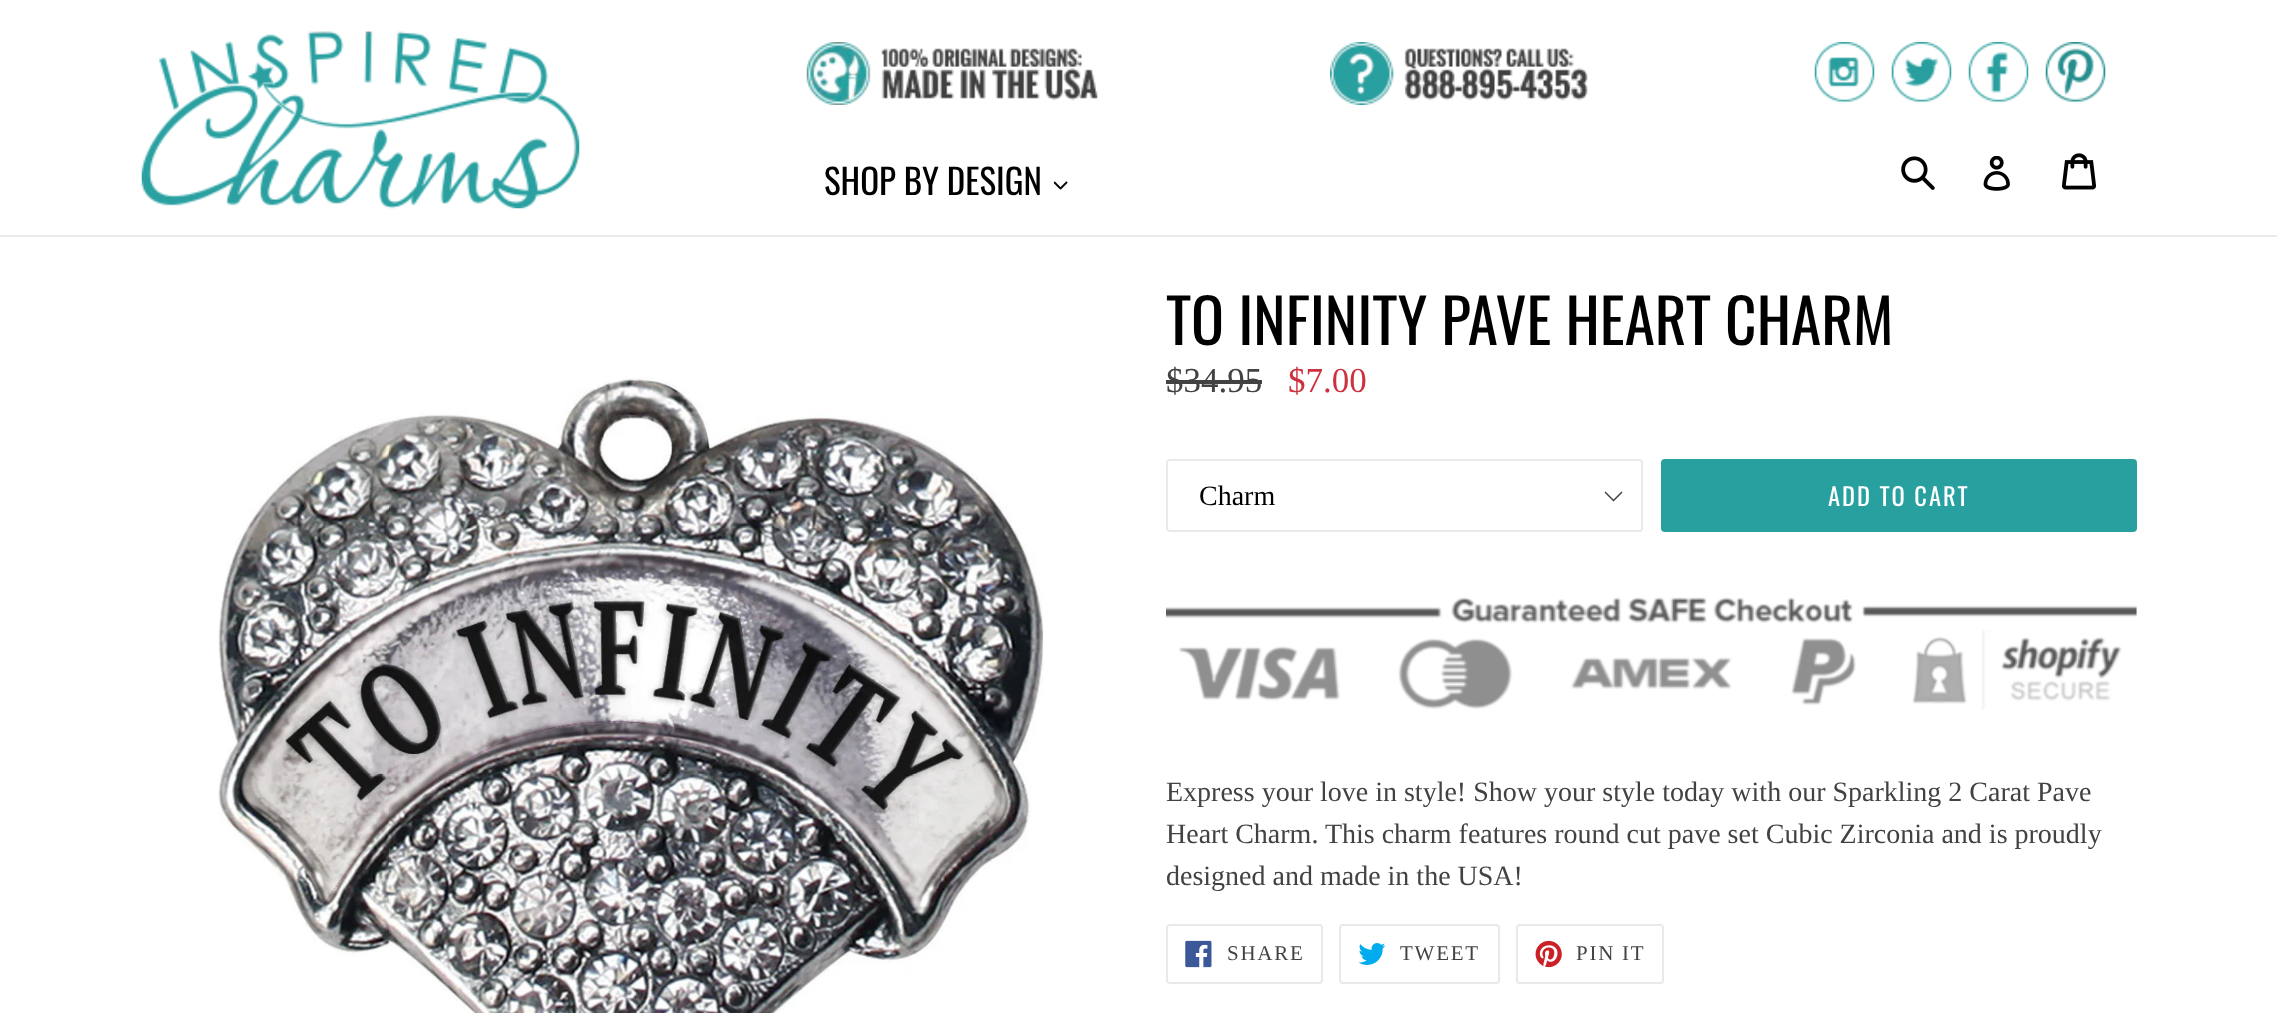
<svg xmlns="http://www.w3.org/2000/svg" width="2277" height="1013">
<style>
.a{font:35px Oswald;fill:#000}
.b{font:61.25px Oswald;fill:#000}
.c{font:35px Liberation Serif;fill:#424242}
.d{font:35px Liberation Serif;fill:#ce313e}
.e{font:28px Liberation Serif;fill:#000}
.f{font:24.5px Oswald;letter-spacing:2px;fill:#fff}
.g{font:28px Liberation Serif;fill:#424242}
.h{font:21px Liberation Serif;letter-spacing:1.75px;fill:#424242}
</style>
<rect width="100%" height="100%" fill="#fff"/>
<path fill="#e8e9eb" d="M0 235h2277v2H0z"/>
<image href="1.png" x="141" y="31" width="439" height="178"/>
<image href="2.png" x="806" y="42" width="292" height="63"/>
<image href="3.png" x="1330" y="42" width="258" height="63"/>
<image href="4.png" x="1814" y="42" width="61" height="60"/>
<image href="5.png" x="1891" y="42" width="61" height="60"/>
<image href="6.png" x="1968" y="42" width="61" height="60"/>
<image href="7.png" x="2045" y="42" width="61" height="60"/>
<image href="8.png" x="1054" y="181" width="14" height="9"/>
<image href="9.png" x="1901" y="156" width="34" height="34"/>
<image href="10.png" x="1983" y="156" width="27" height="35"/>
<image href="11.png" x="2062" y="153" width="34" height="37"/>
<image href="12.png" x="218" y="377" width="826" height="636"/>
<path fill="#424242" d="M1166 380h96v4H1166z"/>
<path fill="#3d4246" d="M1613.5 501.5l-9-9l1-1l8 8l8-8l1 1z"/>
<rect fill="none" stroke="#e8e9eb" stroke-width="2" x="1167" y="460" width="475" height="71" rx="3"/>
<rect fill="#29a0a0" x="1661" y="459" width="476" height="73" rx="4"/>
<image href="13.png" x="1166" y="597" width="971" height="113"/>
<rect fill="none" stroke="#e8e9eb" stroke-width="2" x="1167" y="925" width="155" height="58" rx="3"/>
<image href="14.png" x="1185" y="940" width="27" height="28"/>
<rect fill="none" stroke="#e8e9eb" stroke-width="2" x="1340" y="925" width="159" height="58" rx="3"/>
<image href="15.png" x="1358" y="943" width="28" height="22"/>
<rect fill="none" stroke="#e8e9eb" stroke-width="2" x="1517" y="925" width="146" height="58" rx="3"/>
<image href="16.png" x="1535" y="940" width="27" height="28"/>
<text class="a" x="824" y="195">SHOP BY DESIGN</text>
<text class="b" x="1166" y="345">TO INFINITY PAVE HEART CHARM</text>
<text class="c" x="1166" y="392">$34.95</text>
<text class="d" x="1288" y="392">$7.00</text>
<text class="e" x="1199" y="505">Charm</text>
<text class="f" x="1828" y="506">ADD TO CART</text>
<text class="g" x="1166" y="801">Express your love in style! Show your style today with our Sparkling 2 Carat Pave</text>
<text class="g" x="1166" y="843">Heart Charm. This charm features round cut pave set Cubic Zirconia and is proudly</text>
<text class="g" x="1166" y="885">designed and made in the USA!</text>
<text class="h" x="1227" y="960">SHARE</text>
<text class="h" x="1400" y="960">TWEET</text>
<text class="h" x="1576" y="960">PIN IT</text>
</svg>
